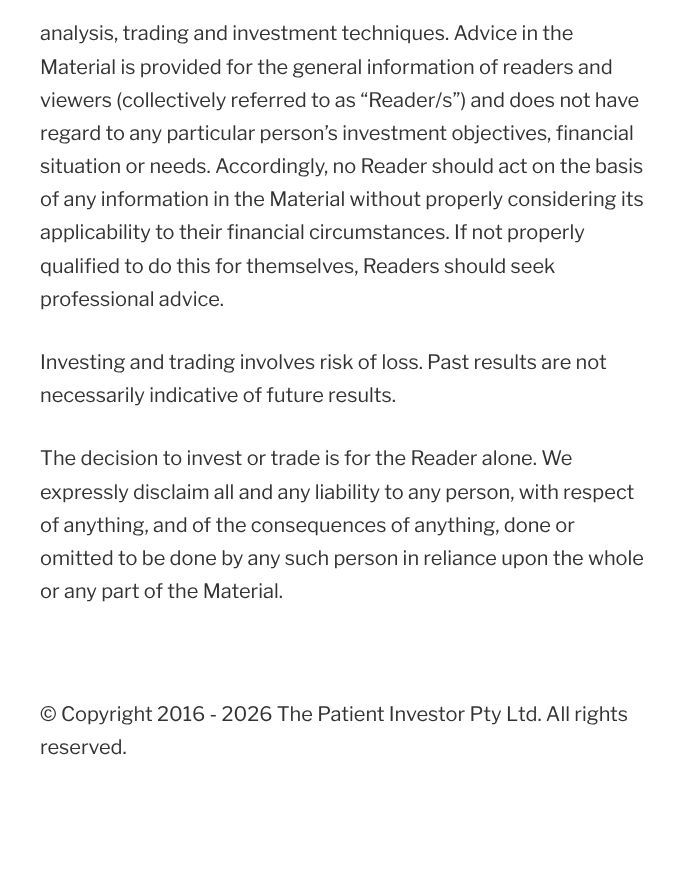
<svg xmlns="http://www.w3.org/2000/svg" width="691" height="894">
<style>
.a{font:100 20px Libre Franklin;fill:#333}
</style>
<rect width="100%" height="100%" fill="#fff"/>
<text class="a" x="40" y="40">analysis, trading and investment techniques. Advice in the</text>
<text class="a" x="40" y="74">Material is provided for the general information of readers and</text>
<text class="a" x="40" y="107">viewers (collectively referred to as “Reader/s”) and does not have</text>
<text class="a" x="40" y="140">regard to any particular person’s investment objectives, financial</text>
<text class="a" x="40" y="173">situation or needs. Accordingly, no Reader should act on the basis</text>
<text class="a" x="40" y="206">of any information in the Material without properly considering its</text>
<text class="a" x="40" y="239">applicability to their financial circumstances. If not properly</text>
<text class="a" x="40" y="273">qualified to do this for themselves, Readers should seek</text>
<text class="a" x="40" y="306">professional advice.</text>
<text class="a" x="40" y="369">Investing and trading involves risk of loss. Past results are not</text>
<text class="a" x="40" y="402">necessarily indicative of future results.</text>
<text class="a" x="40" y="465">The decision to invest or trade is for the Reader alone. We</text>
<text class="a" x="40" y="499">expressly disclaim all and any liability to any person, with respect</text>
<text class="a" x="40" y="532">of anything, and of the consequences of anything, done or</text>
<text class="a" x="40" y="565">omitted to be done by any such person in reliance upon the whole</text>
<text class="a" x="40" y="598">or any part of the Material.</text>
<text class="a" x="40" y="721">© Copyright 2016 - 2026 The Patient Investor Pty Ltd. All rights</text>
<text class="a" x="40" y="754">reserved.</text>
</svg>
